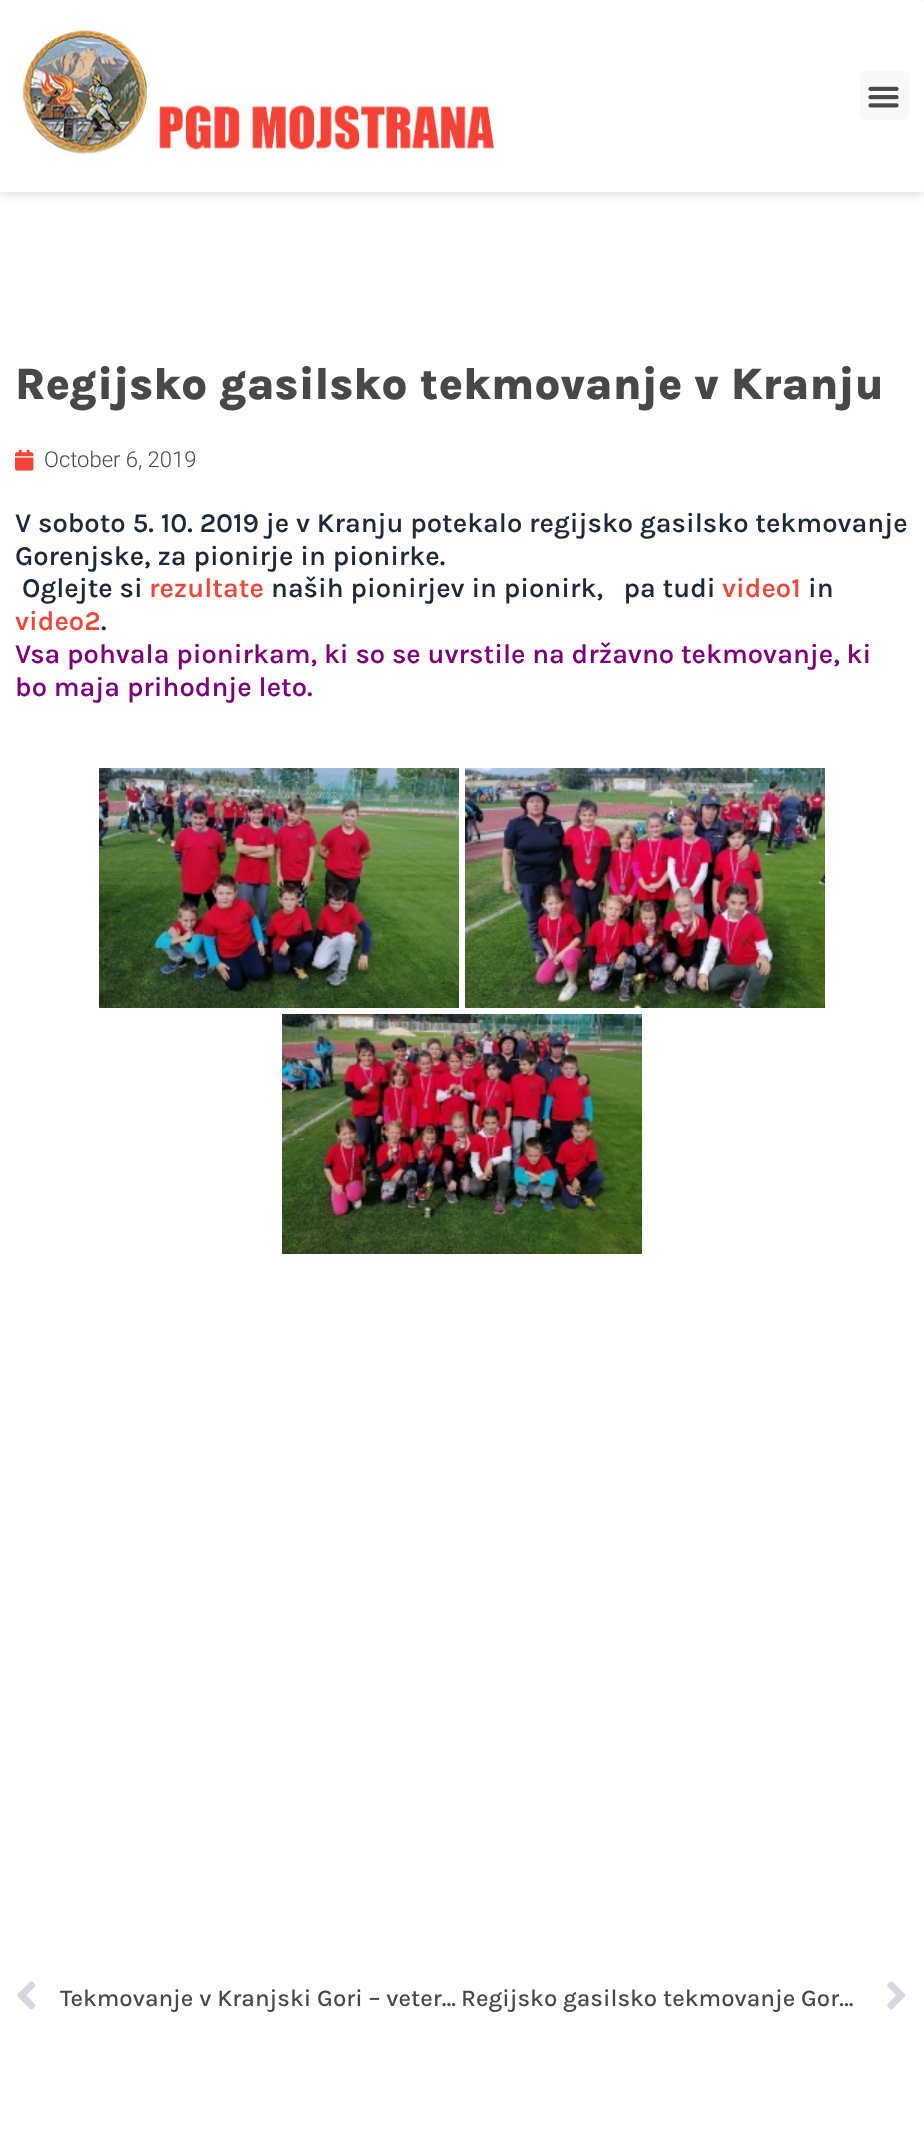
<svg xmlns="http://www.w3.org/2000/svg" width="924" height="2145">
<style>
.a{font:800 45px Karla;fill:#484848}
.b{font:300 22px Roboto;fill:#484848}
.c{font:600 27.35px Karla;fill:#1e293b}
.d{font:600 27.35px Karla;fill:#f54336}
.e{font:600 27.35px Karla;fill:#800080}
.f{font:500 24px Karla;fill:#484848}
</style>
<rect width="100%" height="100%" fill="#fff"/>
<rect fill="#00000033" filter="blur(6px)" width="924" height="192" rx="1.5"/>
<rect fill="#fff" width="924" height="192" rx="1.5"/>
<image href="1.png" x="22" y="30" width="473" height="125"/>
<rect fill="#f9f8f8" x="860" y="71" width="49" height="49" rx="5"/>
<image href="2.png" x="868" y="86" width="31" height="22"/>
<image href="3.png" x="15" y="449" width="19" height="22"/>
<image href="4.png" x="99" y="768" width="360" height="240"/>
<image href="5.png" x="465" y="768" width="360" height="240"/>
<image href="6.png" x="282" y="1014" width="360" height="240"/>
<image href="7.png" x="17" y="1981" width="19" height="29"/>
<image href="8.png" x="887" y="1981" width="19" height="29"/>
<text class="a" x="15" y="399">Regijsko gasilsko tekmovanje v Kranju</text>
<text class="b" x="44" y="467">October 6, 2019</text>
<text class="c" x="15" y="532">V soboto 5. 10. 2019 je v Kranju potekalo regijsko gasilsko tekmovanje</text>
<text class="c" x="15" y="565">Gorenjske, za pionirje in pionirke.</text>
<text class="c" x="22" y="597">Oglejte si</text>
<text class="d" x="149" y="597">rezultate</text>
<text class="c" xml:space="preserve" x="271" y="597">naših pionirjev in pionirk,   pa tudi</text>
<text class="d" x="722" y="597">video1</text>
<text class="c" x="808" y="597">in</text>
<text class="d" x="15" y="630">video2</text>
<text class="c" x="101" y="630">.</text>
<text class="e" x="15" y="663">Vsa pohvala pionirkam, ki so se uvrstile na državno tekmovanje, ki</text>
<text class="e" x="15" y="696">bo maja prihodnje leto.</text>
<text class="f" x="60" y="2006">Tekmovanje v Kranjski Gori – veter…</text>
<text class="f" x="461" y="2006">Regijsko gasilsko tekmovanje Gor…</text>
</svg>
